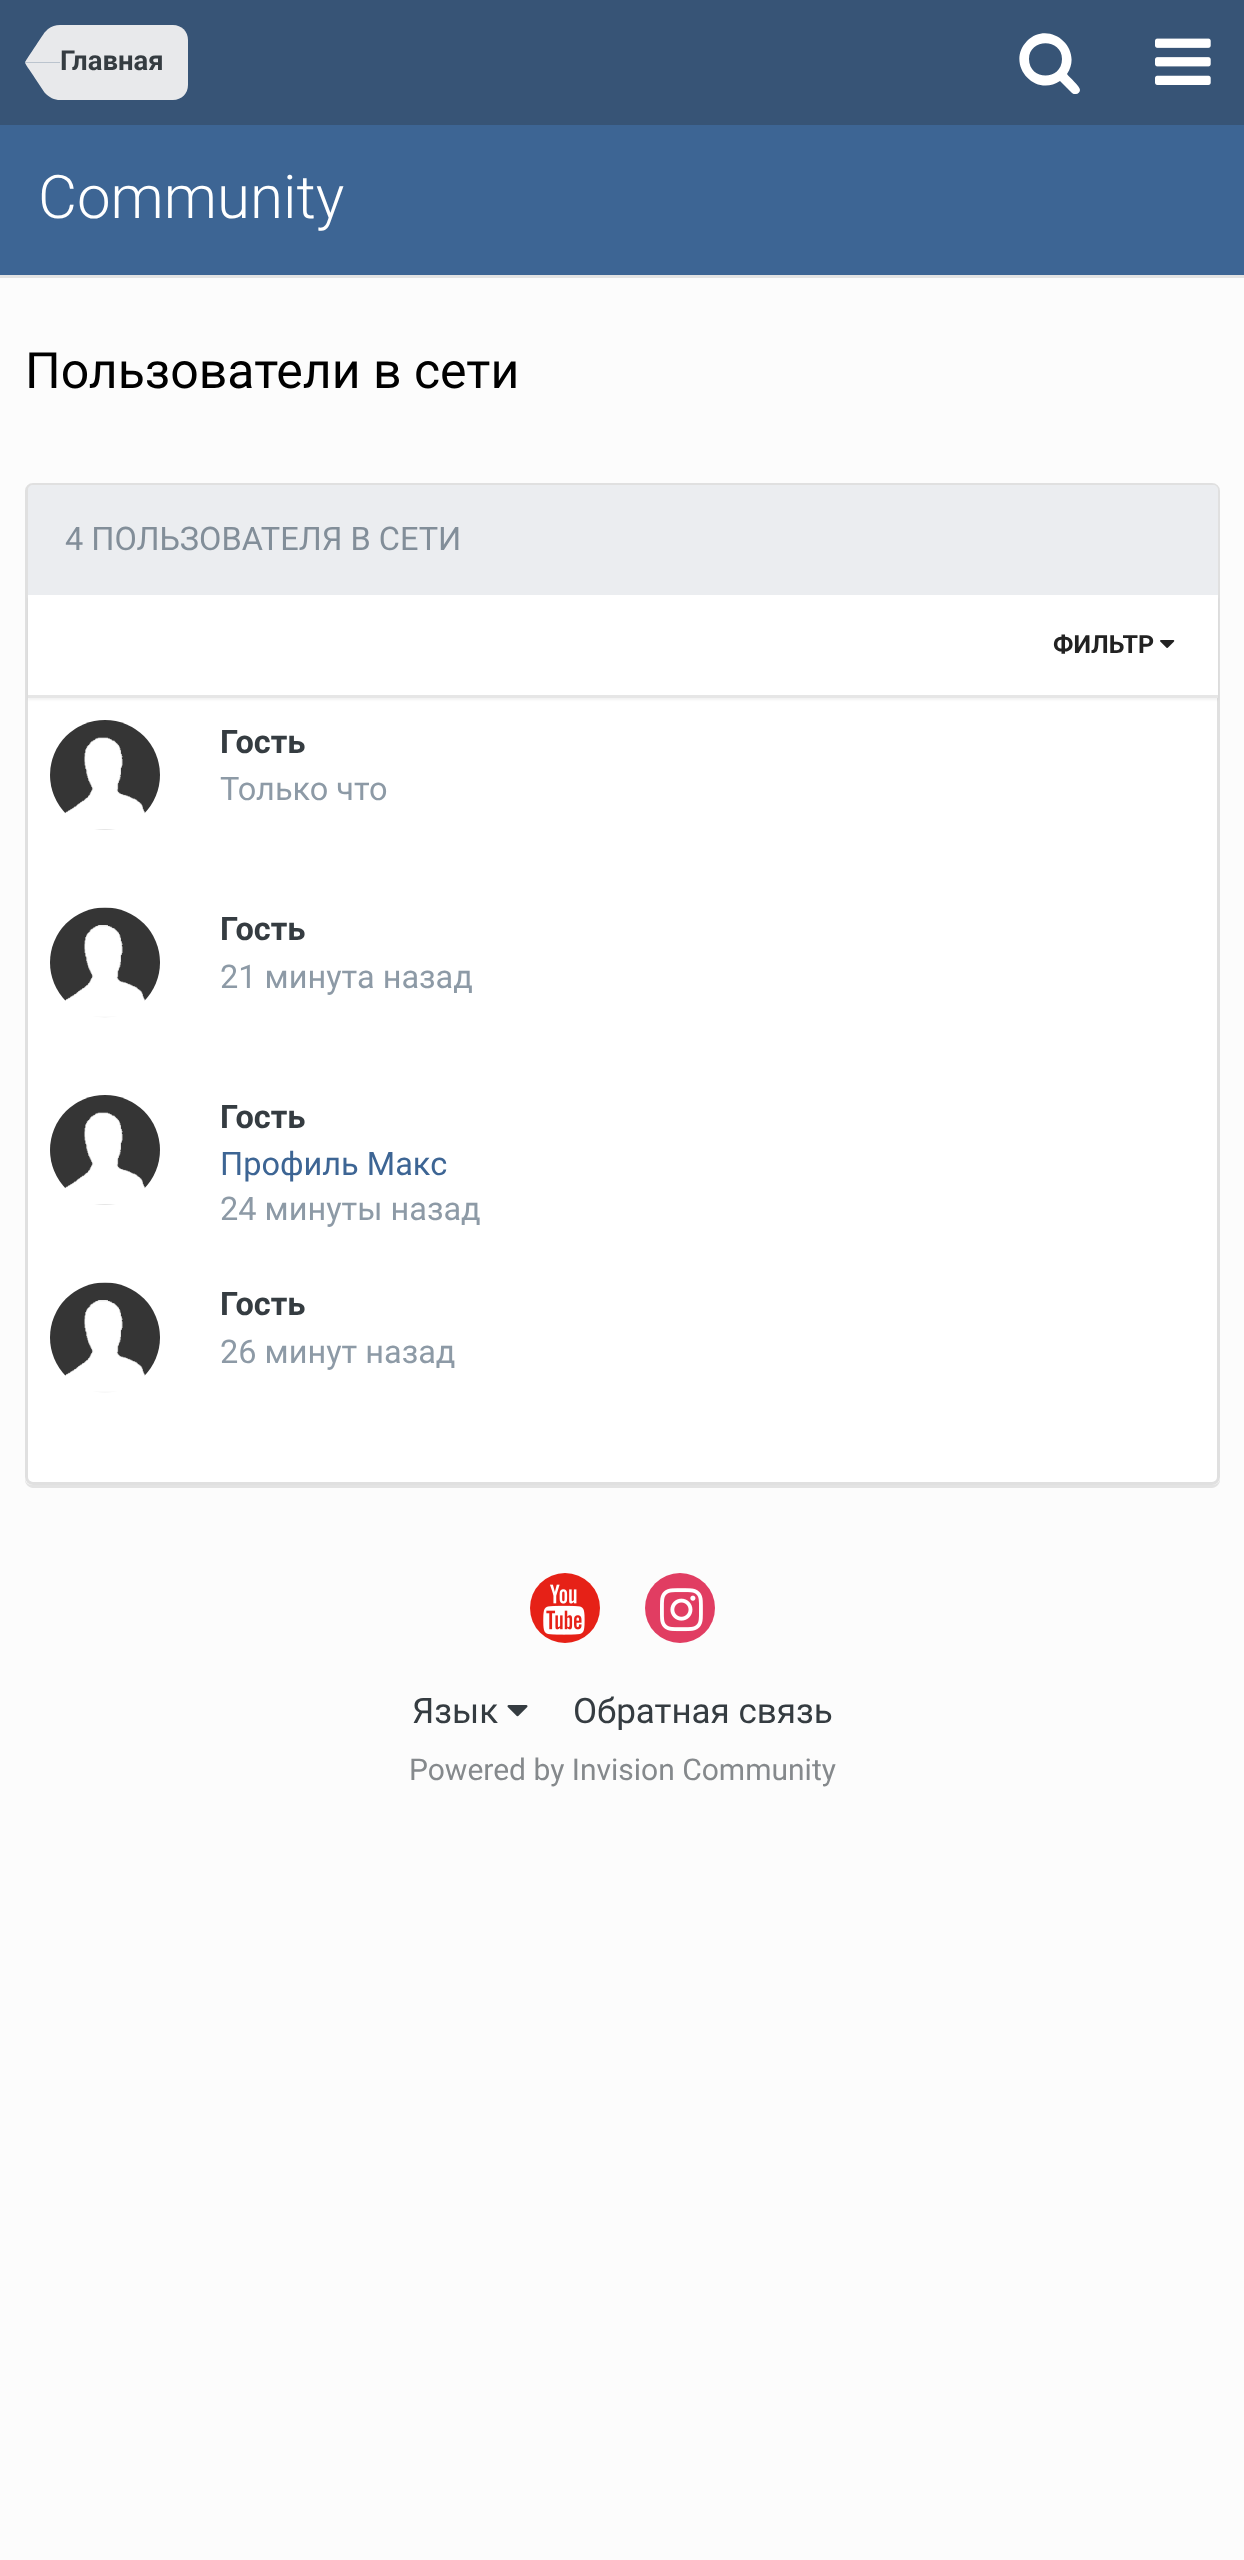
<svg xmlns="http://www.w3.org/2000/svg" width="1244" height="2560">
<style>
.a{font:bold 27.5px Roboto;fill:#353c41}
.b{font:300 60px Roboto;fill:#fff}
.c{font:50px Roboto;fill:#000}
.d{font:32.5px Roboto;fill:#828e99}
.e{font:bold 25px Roboto;fill:#222}
.f{font:bold 32.5px Roboto;fill:#353c41}
.g{font:32.5px Roboto;fill:#8d9aa6}
.h{font:32.5px Roboto;fill:#3d6594}
.i{font:35px Roboto;fill:#353c41}
.j{font:30px Roboto;fill:#85898c}
</style>
<rect width="100%" height="100%" fill="#fcfcfc"/>
<path fill="#e3e3e3" d="M0 275h1244v3H0z"/>
<path fill="#375476" d="M0 0h1244v125H0z"/>
<path fill="#e8e9eb" d="M60 25h113c8.5 0 15 6.5 15 15v45c0 8.5-6.5 15-15 15h-113z"/>
<path fill="#e8e9eb" d="M34.5 77.5c-1-2-9.5-13.5-9.5-15h35v37.5c-5.5 0-11-2.5-15.5-7.5z"/>
<path fill="#e8e9eb" d="M60 25v37.5h-35c0-1 18-27.5 19.5-30l3.5-3.5c3.5-2.5 7.5-4 12-4z"/>
<path fill="#fff" d="M1062 59c0 22-33 22-33 0c0-21 33-21 33 0zm18 31c0-4-11-13-13-16c17-25-17-55-40-33c-22 23 8 57 33 40l12 12c1 1 2 1 4 1c2 0 4-2 4-4z"/>
<image href="1.png" x="1155" y="38" width="56" height="47"/>
<path fill="#3d6594" d="M0 125h1244v150H0z"/>
<path fill="#e3e3e3" d="M25 1478v2c0 4 4 8 8 8h1179c4 0 8-4 8-8v-2c0 4-3 7-8 7h-1180c-4 0-7-3-7-7z"/>
<rect fill="#fff" stroke="#e0e0e0" stroke-width="3" x="26.5" y="484.5" width="1192" height="999" rx="6.5"/>
<path fill="#ebedf0" d="M33 485h1180c3 0 5 2 5 5v105h-1190v-105c0-3 2-5 5-5z"/>
<path fill="#0000000d" filter="blur(1px)" d="M28 598h1190v102H28z"/>
<path fill="#fff" d="M28 595h1190v100H28z"/>
<path fill="#e6e6e6" d="M28 695h1190v3H28z"/>
<image href="2.png" x="1160" y="640" width="15" height="8"/>
<image href="3.png" x="50" y="720" width="110" height="110"/>
<image href="4.png" x="50" y="907" width="110" height="111"/>
<image href="5.png" x="50" y="1095" width="110" height="110"/>
<image href="6.png" x="50" y="1282" width="110" height="111"/>
<circle fill="#e62117" cx="565" cy="1608" r="35"/>
<image href="7.png" x="543" y="1584" width="42" height="51"/>
<circle fill="#e13d62" cx="680" cy="1608" r="35"/>
<image href="8.png" x="660" y="1588" width="43" height="44"/>
<image href="9.png" x="507" y="1705" width="21" height="12"/>
<text class="a" x="60" y="70">Главная</text>
<text class="b" x="38" y="218">Community</text>
<text class="c" x="25" y="388">Пользователи в сети</text>
<text class="d" x="65" y="550">4 ПОЛЬЗОВАТЕЛЯ В СЕТИ</text>
<text class="e" x="1053" y="653">ФИЛЬТР</text>
<text class="f" x="220" y="753">Гость</text>
<text class="g" x="220" y="800">Только что</text>
<text class="f" x="220" y="940">Гость</text>
<text class="g" x="220" y="988">21 минута назад</text>
<text class="f" x="220" y="1128">Гость</text>
<text class="h" x="220" y="1175">Профиль Макс</text>
<text class="g" x="220" y="1220">24 минуты назад</text>
<text class="f" x="220" y="1315">Гость</text>
<text class="g" x="220" y="1363">26 минут назад</text>
<text class="i" x="412" y="1723">Язык</text>
<text class="i" x="573" y="1723">Обратная связь</text>
<text class="j" x="409" y="1780">Powered by Invision Community</text>
</svg>
